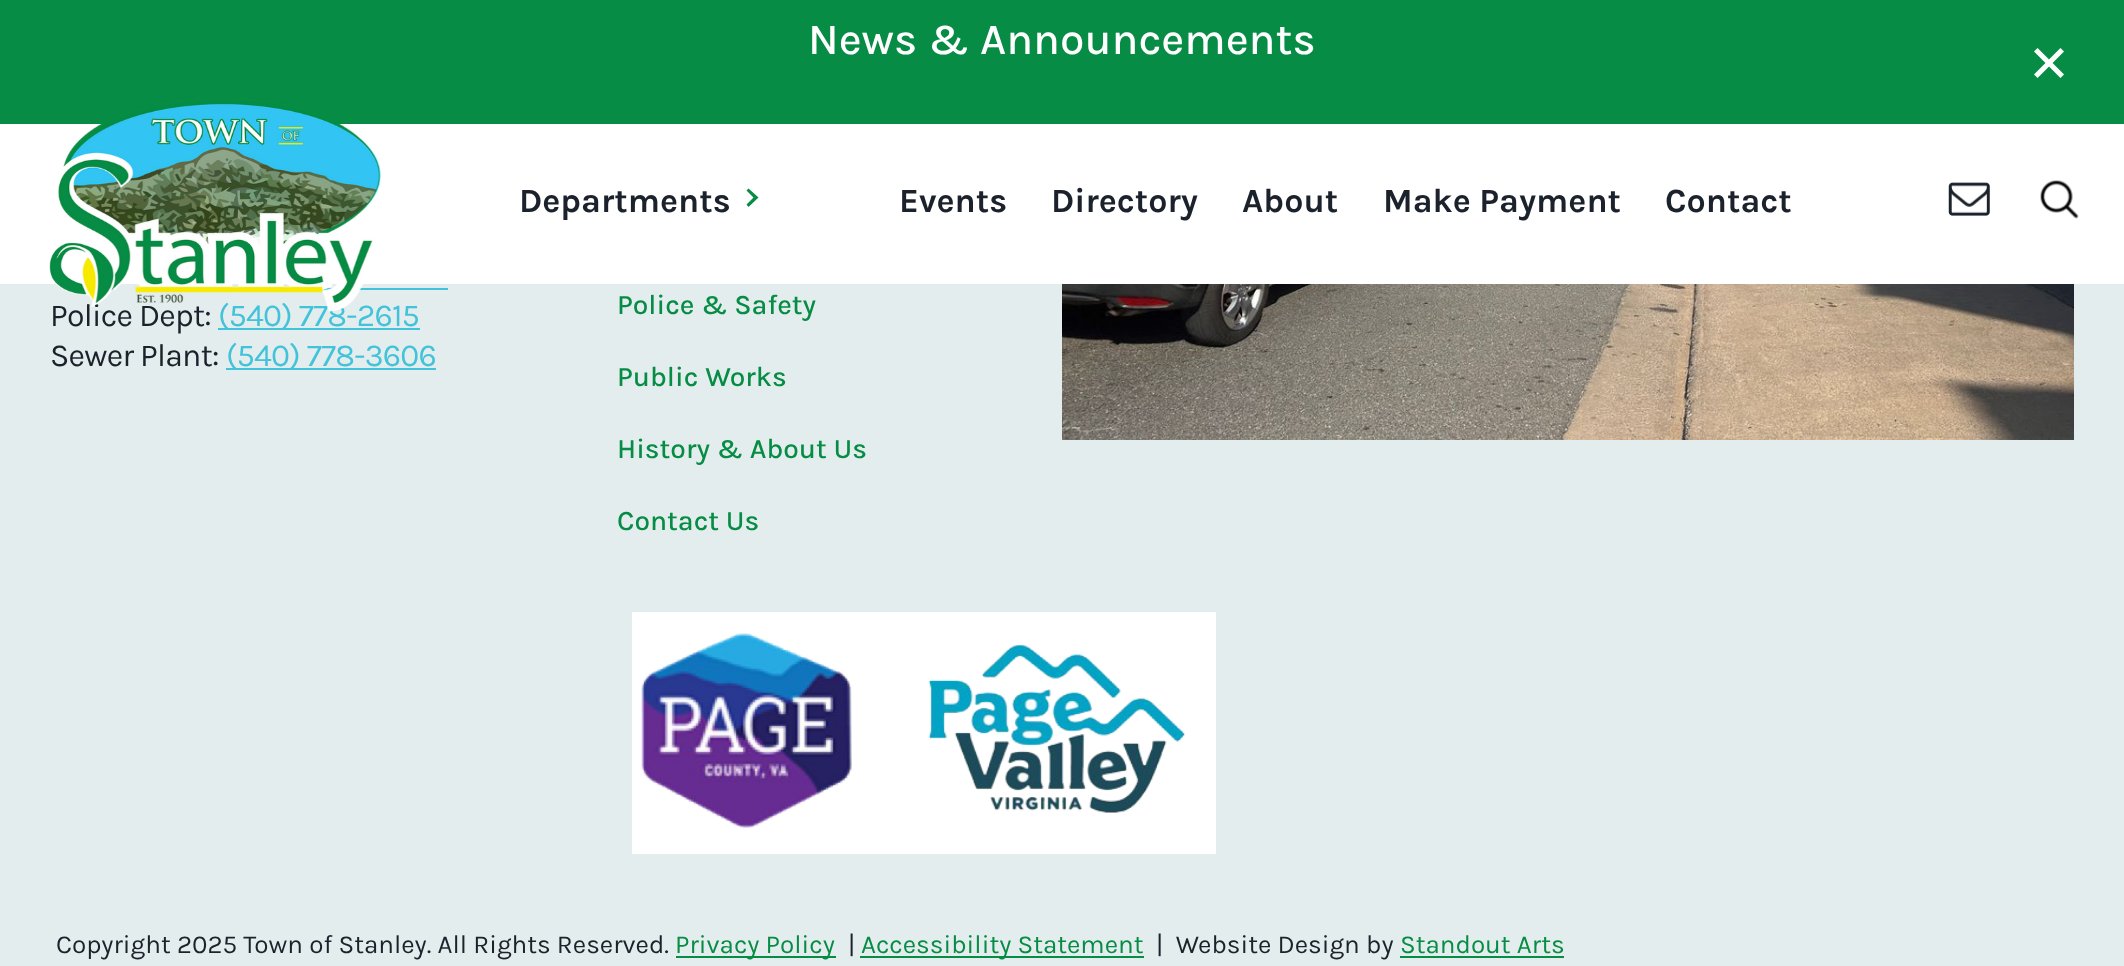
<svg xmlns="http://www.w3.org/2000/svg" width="2124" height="966">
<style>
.a{font:500 44px Karla;fill:#fff}
.b{font:bold 34px Karla;fill:#1b222c}
.c{font:32px Karla;letter-spacing:-0.75px;fill:#1b222c}
.d{font:32px Karla;letter-spacing:-0.75px;fill:#43c3da}
.e{font:500 28px Karla;fill:#068c44}
.f{font:26px Karla;fill:#1b222c}
.g{font:26px Karla;fill:#068c44}
</style>
<rect width="100%" height="100%" fill="#e4edee"/>
<path fill="#068c44" d="M0 0h2124v124H0z"/>
<image href="1.png" x="2034" y="48" width="30" height="30"/>
<path fill="#fff" d="M0 124h2124v160H0z"/>
<path fill="#068c44" d="M746.5 190.5l7 7l-7 7l2 2.5l10-9.5l-10-9z"/>
<image href="3.png" x="1948" y="182" width="42" height="34"/>
<image href="4.png" x="2040" y="180" width="39" height="39"/>
<path fill="#43c3da" d="M283 288h165v2H283z"/>
<path fill="#43c3da" d="M218 328h202v2H218z"/>
<path fill="#43c3da" d="M226 368h210v2H226z"/>
<image href="5.png" x="1062" y="284" width="1012" height="156"/>
<image href="6.png" x="632" y="612" width="584" height="242"/>
<path fill="#068c44" d="M676 956h160v2H676z"/>
<path fill="#068c44" d="M860 956h284v2H860z"/>
<path fill="#068c44" d="M1400 956h164v2H1400z"/>
<text class="a" x="808" y="54">News &amp; Announcements</text>
<text class="b" x="519" y="212">Departments</text>
<text class="b" x="899" y="212">Events</text>
<text class="b" x="1051" y="212">Directory</text>
<text class="b" x="1242" y="212">About</text>
<text class="b" x="1383" y="212">Make Payment</text>
<text class="b" x="1665" y="212">Contact</text>
<text class="c" x="50" y="326">Police Dept:</text>
<text class="d" x="218" y="326">(540) 778-2615</text>
<image href="2.png" x="49" y="97" width="332" height="215"/>
<text class="c" x="50" y="366">Sewer Plant:</text>
<text class="d" x="226" y="366">(540) 778-3606</text>
<text class="e" x="617" y="314">Police &amp; Safety</text>
<text class="e" x="617" y="386">Public Works</text>
<text class="e" x="617" y="458">History &amp; About Us</text>
<text class="e" x="617" y="530">Contact Us</text>
<text class="f" x="56" y="953">Copyright 2025 Town of Stanley. All Rights Reserved.</text>
<text class="g" x="675" y="953">Privacy Policy</text>
<text class="f" x="848" y="953">|</text>
<text class="g" x="861" y="953">Accessibility Statement</text>
<text class="f" xml:space="preserve" x="1156" y="953">|  Website Design by</text>
<text class="g" x="1400" y="953">Standout Arts</text>
</svg>
